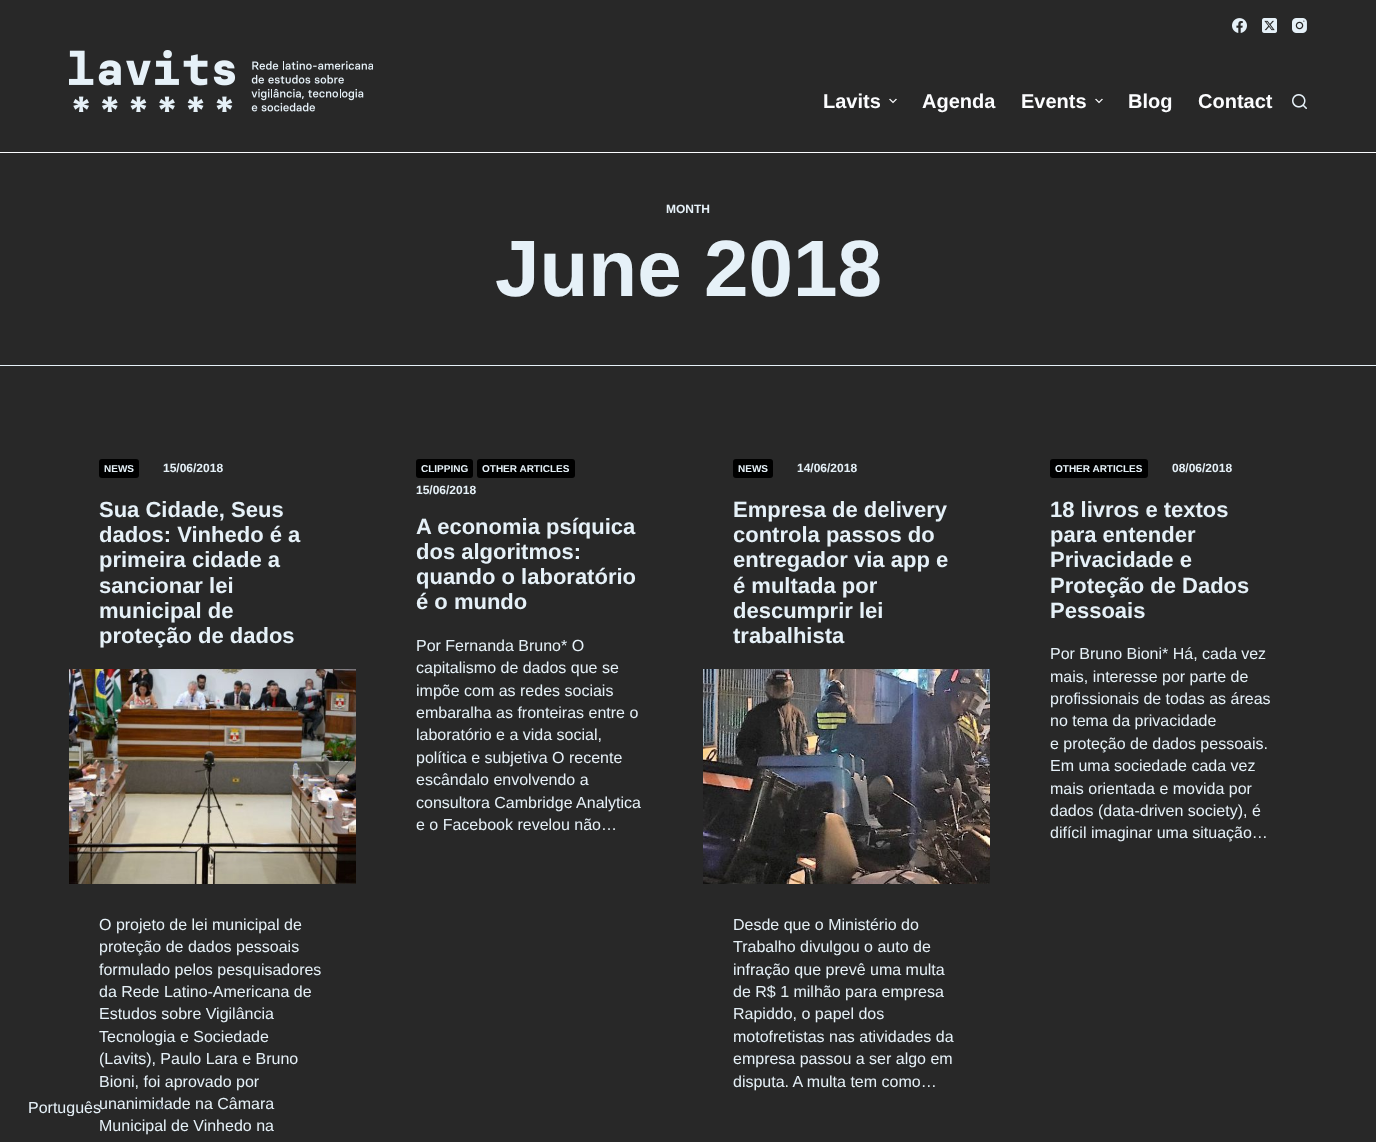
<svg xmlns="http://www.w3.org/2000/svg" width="1376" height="1142">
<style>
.a{font:bold 20px Liberation Sans;fill:#fcfdff}
.b{font:bold 12px Liberation Sans;fill:#e6f1f8}
.c{font:bold 80px Liberation Sans;fill:#e6f1f8}
.d{font:bold 10px Liberation Sans;fill:#e6f1f8}
.e{font:bold 22px Liberation Sans;fill:#e6f1f8}
.f{font:16px Liberation Sans;fill:#e6f1f8}
</style>
<defs>
<clipPath id="clip1"><path d="M28 1099h121v17H28z"/></clipPath>
</defs>
<rect width="100%" height="100%" fill="#282828"/>
<image href="2.png" x="1232" y="18" width="15" height="15"/>
<image href="3.png" x="1262" y="18" width="15" height="15"/>
<image href="4.png" x="1292" y="18" width="15" height="15"/>
<path fill="#fcfdff" d="M0 152h1376v1H0z"/>
<image href="5.png" x="69" y="50" width="304" height="62"/>
<image href="6.png" x="889" y="98" width="8" height="6"/>
<image href="6.png" x="1095" y="98" width="8" height="6"/>
<image href="7.png" x="1292" y="94" width="15" height="15"/>
<path fill="#e6f1f8" d="M0 365h1376v1H0z"/>
<rect fill="#000" x="99" y="459" width="40" height="19" rx="3"/>
<image href="8.png" x="69" y="669" width="287" height="215"/>
<rect fill="#000" x="416" y="459" width="57" height="19" rx="3"/>
<rect fill="#000" x="477" y="459" width="98" height="19" rx="3"/>
<rect fill="#000" x="733" y="459" width="40" height="19" rx="3"/>
<image href="9.png" x="703" y="669" width="287" height="215"/>
<rect fill="#000" x="1050" y="459" width="98" height="19" rx="3"/>
<text class="a" x="823" y="108">Lavits</text>
<text class="a" x="922" y="108">Agenda</text>
<text class="a" x="1021" y="108">Events</text>
<text class="a" x="1128" y="108">Blog</text>
<text class="a" x="1198" y="108">Contact</text>
<text class="b" x="666" y="213">MONTH</text>
<text class="c" x="495" y="296">June 2018</text>
<text class="d" x="104" y="472">NEWS</text>
<text class="b" x="163" y="472">15/06/2018</text>
<text class="e" x="99" y="517">Sua Cidade, Seus</text>
<text class="e" x="99" y="542">dados: Vinhedo é a</text>
<text class="e" x="99" y="567">primeira cidade a</text>
<text class="e" x="99" y="593">sancionar lei</text>
<text class="e" x="99" y="618">municipal de</text>
<text class="e" x="99" y="643">proteção de dados</text>
<text class="f" x="99" y="930">O projeto de lei municipal de</text>
<text class="f" x="99" y="952">proteção de dados pessoais</text>
<text class="f" x="99" y="975">formulado pelos pesquisadores</text>
<text class="f" x="99" y="997">da Rede Latino-Americana de</text>
<text class="f" x="99" y="1019">Estudos sobre Vigilância</text>
<text class="f" x="99" y="1042">Tecnologia e Sociedade</text>
<text class="f" x="99" y="1064">(Lavits), Paulo Lara e Bruno</text>
<text class="f" x="99" y="1087">Bioni, foi aprovado por</text>
<text class="f" x="99" y="1109">unanimidade na Câmara</text>
<g clip-path="url(#clip1)">
<text class="f" x="28" y="1113">Português</text>
</g>
<image href="1.png" x="156" y="1105" width="8" height="4"/>
<text class="f" x="99" y="1131">Municipal de Vinhedo na</text>
<text class="d" x="421" y="472">CLIPPING</text>
<text class="d" x="482" y="472">OTHER ARTICLES</text>
<text class="b" x="416" y="494">15/06/2018</text>
<text class="e" x="416" y="534">A economia psíquica</text>
<text class="e" x="416" y="559">dos algoritmos:</text>
<text class="e" x="416" y="584">quando o laboratório</text>
<text class="e" x="416" y="609">é o mundo</text>
<text class="f" x="416" y="651">Por Fernanda Bruno* O</text>
<text class="f" x="416" y="673">capitalismo de dados que se</text>
<text class="f" x="416" y="696">impõe com as redes sociais</text>
<text class="f" x="416" y="718">embaralha as fronteiras entre o</text>
<text class="f" x="416" y="740">laboratório e a vida social,</text>
<text class="f" x="416" y="763">política e subjetiva O recente</text>
<text class="f" x="416" y="785">escândalo envolvendo a</text>
<text class="f" x="416" y="808">consultora Cambridge Analytica</text>
<text class="f" x="416" y="830">e o Facebook revelou não…</text>
<text class="d" x="738" y="472">NEWS</text>
<text class="b" x="797" y="472">14/06/2018</text>
<text class="e" x="733" y="517">Empresa de delivery</text>
<text class="e" x="733" y="542">controla passos do</text>
<text class="e" x="733" y="567">entregador via app e</text>
<text class="e" x="733" y="593">é multada por</text>
<text class="e" x="733" y="618">descumprir lei</text>
<text class="e" x="733" y="643">trabalhista</text>
<text class="f" x="733" y="930">Desde que o Ministério do</text>
<text class="f" x="733" y="952">Trabalho divulgou o auto de</text>
<text class="f" x="733" y="975">infração que prevê uma multa</text>
<text class="f" x="733" y="997">de R$ 1 milhão para empresa</text>
<text class="f" x="733" y="1019">Rapiddo, o papel dos</text>
<text class="f" x="733" y="1042">motofretistas nas atividades da</text>
<text class="f" x="733" y="1064">empresa passou a ser algo em</text>
<text class="f" x="733" y="1087">disputa. A multa tem como…</text>
<text class="d" x="1055" y="472">OTHER ARTICLES</text>
<text class="b" x="1172" y="472">08/06/2018</text>
<text class="e" x="1050" y="517">18 livros e textos</text>
<text class="e" x="1050" y="542">para entender</text>
<text class="e" x="1050" y="567">Privacidade e</text>
<text class="e" x="1050" y="593">Proteção de Dados</text>
<text class="e" x="1050" y="618">Pessoais</text>
<text class="f" x="1050" y="659">Por Bruno Bioni* Há, cada vez</text>
<text class="f" x="1050" y="682">mais, interesse por parte de</text>
<text class="f" x="1050" y="704">profissionais de todas as áreas</text>
<text class="f" x="1050" y="726">no tema da privacidade</text>
<text class="f" x="1050" y="749">e proteção de dados pessoais.</text>
<text class="f" x="1050" y="771">Em uma sociedade cada vez</text>
<text class="f" x="1050" y="794">mais orientada e movida por</text>
<text class="f" x="1050" y="816">dados (data-driven society), é</text>
<text class="f" x="1050" y="838">difícil imaginar uma situação…</text>
</svg>
